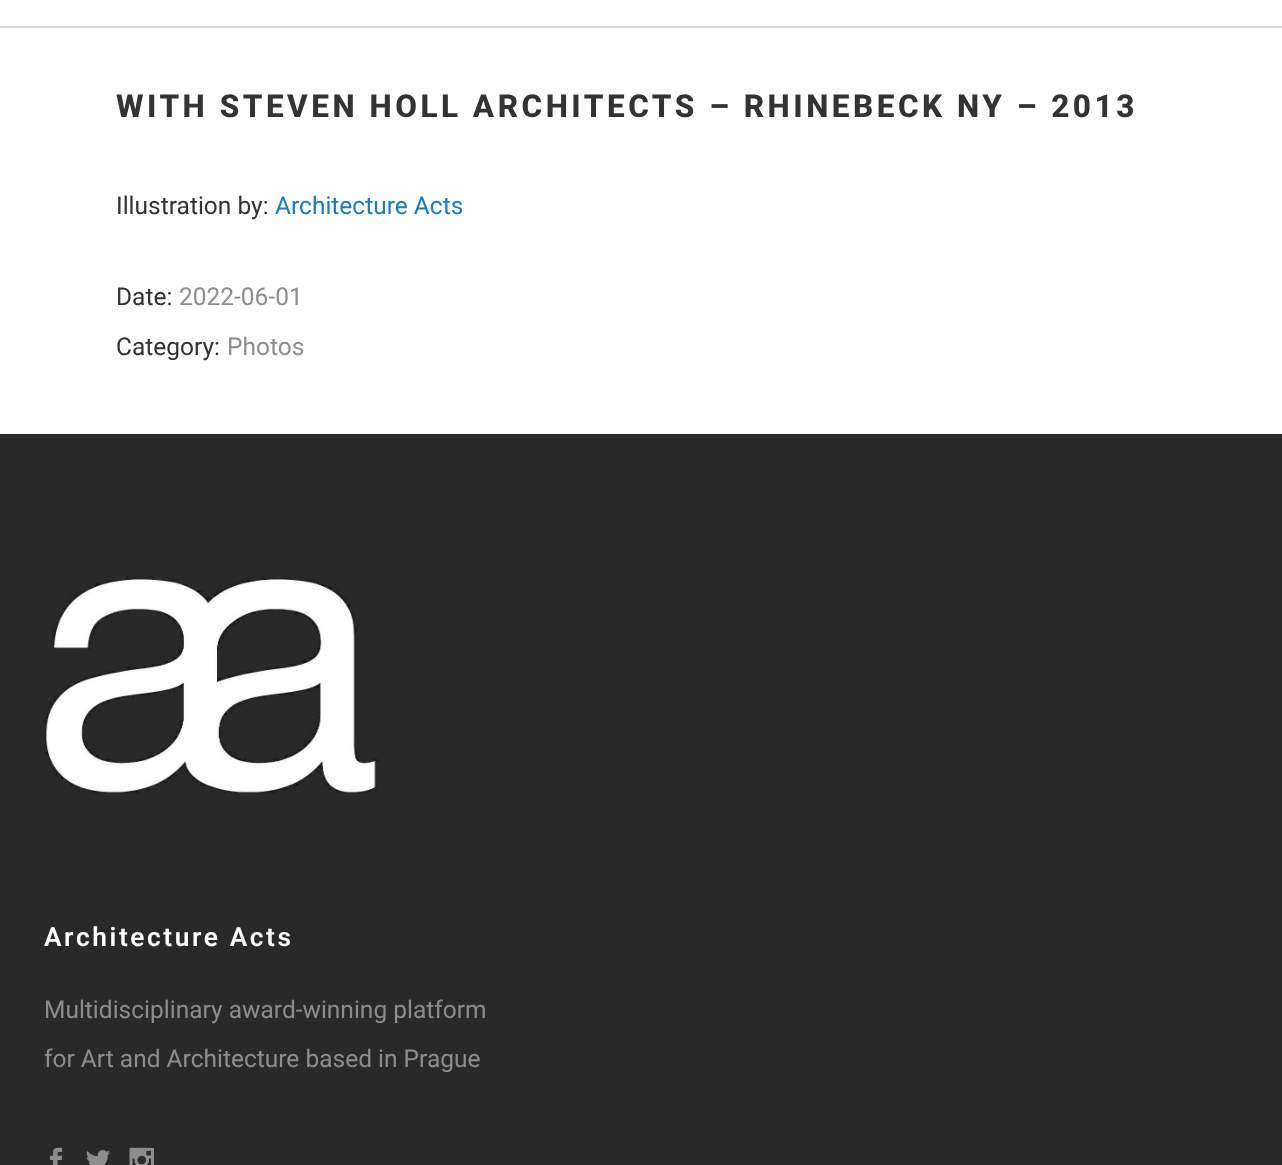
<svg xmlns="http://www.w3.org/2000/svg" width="1282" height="1165">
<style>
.a{font:800 31.5px Roboto;letter-spacing:3.5px;fill:#333}
.b{font:24.5px Roboto;fill:#333}
.c{font:24.5px Roboto;fill:#1d7bba}
.d{font:24.5px Roboto;fill:#8d8d8d}
.e{font:600 26.25px Roboto;letter-spacing:2.6px;fill:#fff}
</style>
<rect width="100%" height="100%" fill="#fff"/>
<path fill="#d4d4d4" d="M0 26h1282v2H0z"/>
<path fill="#292929" d="M0 434h1282v731H0z"/>
<image href="1.png" x="44" y="576" width="334" height="218"/>
<image href="2.png" x="49" y="1147" width="14" height="18"/>
<image href="3.png" x="86" y="1150" width="24" height="15"/>
<image href="4.png" x="129" y="1147" width="25" height="18"/>
<text class="a" x="116" y="117">WITH STEVEN HOLL ARCHITECTS – RHINEBECK NY – 2013</text>
<text class="b" x="116" y="214">Illustration by:</text>
<text class="c" x="275" y="214">Architecture Acts</text>
<text class="b" x="116" y="305">Date:</text>
<text class="d" x="179" y="305">2022-06-01</text>
<text class="b" x="116" y="355">Category:</text>
<text class="d" x="227" y="355">Photos</text>
<text class="e" x="44" y="946">Architecture Acts</text>
<text class="d" x="44" y="1018">Multidisciplinary award-winning platform</text>
<text class="d" x="44" y="1067">for Art and Architecture based in Prague</text>
</svg>
